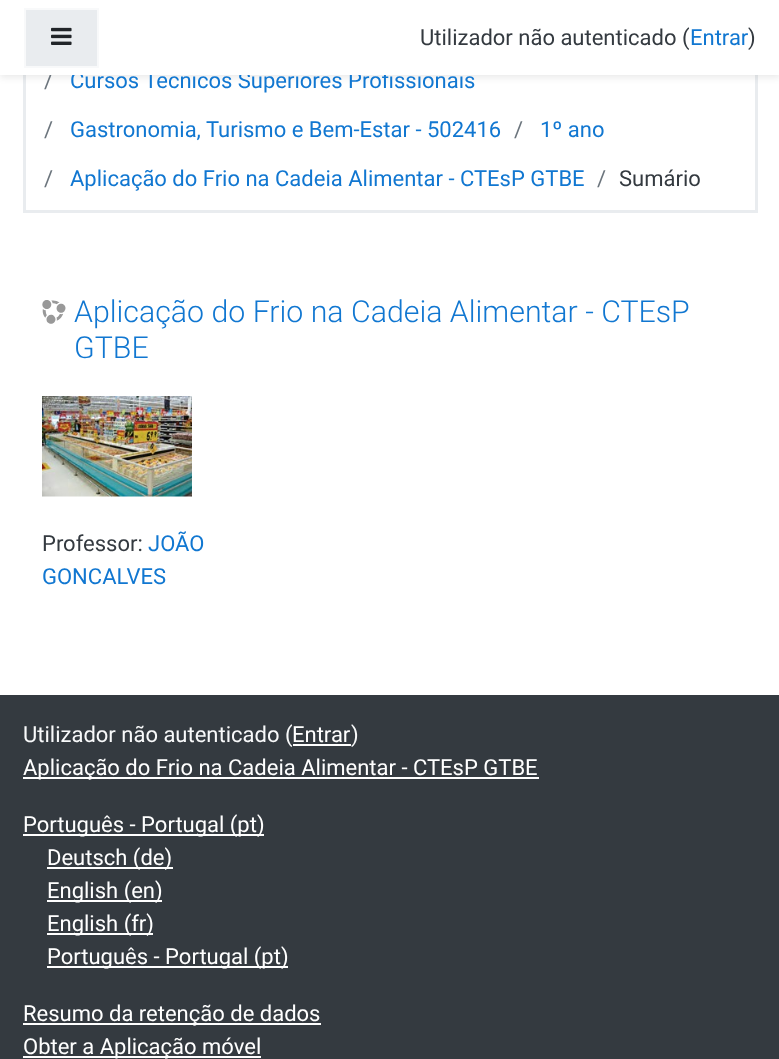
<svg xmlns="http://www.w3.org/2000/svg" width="779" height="1059">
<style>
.a{font:22px Roboto;fill:#6c757d}
.b{font:22px Roboto;fill:#1177d1}
.c{font:22px Roboto;fill:#343a40}
.d{font:300 30.3px Roboto;fill:#1177d1}
.e{font:22px Roboto;fill:#f8f9fa}
.f{font:22px Roboto;fill:#fff}
</style>
<rect width="100%" height="100%" fill="#fff"/>
<path fill="none" stroke="#e9ecef" stroke-width="3" d="M24.5 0.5h732v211H24.5z"/>
<path fill="#00000014" filter="blur(3px)" d="M0 3h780v75H0z"/>
<image href="2.png" x="42" y="300" width="24" height="24"/>
<image href="3.png" x="42" y="396" width="150" height="101"/>
<path fill="#343a40" d="M0 695h779v364H0z"/>
<path fill="#fff" d="M293 744h58v2H293z"/>
<path fill="#fff" d="M23 777h516v2H23z"/>
<path fill="#fff" d="M23 834h241v2H23z"/>
<path fill="#fff" d="M47 867h126v2H47z"/>
<path fill="#fff" d="M47 900h115v2H47z"/>
<path fill="#fff" d="M47 933h106v2H47z"/>
<path fill="#fff" d="M47 966h241v2H47z"/>
<path fill="#fff" d="M23 1023h298v2H23z"/>
<path fill="#fff" d="M23 1056h238v2H23z"/>
<text class="a" x="44" y="88">/</text>
<text class="b" x="70" y="88">Cursos Técnicos Superiores Profissionais</text>
<path fill="#fff" d="M0 0h779v75H0z"/>
<text class="b" x="690" y="45">Entrar</text>
<text class="c" x="748" y="45">)</text>
<text class="c" x="420" y="45">Utilizador não autenticado (</text>
<path fill="#e9ecef" stroke="#f8f9fa" stroke-width="2" d="M25 9h73v58H25z"/>
<image href="1.png" x="51" y="27" width="21" height="18"/>
<text class="a" x="44" y="137">/</text>
<text class="b" x="70" y="137">Gastronomia, Turismo e Bem-Estar - 502416</text>
<text class="a" x="514" y="137">/</text>
<text class="b" x="540" y="137">1º ano</text>
<text class="a" x="44" y="186">/</text>
<text class="b" x="70" y="186">Aplicação do Frio na Cadeia Alimentar - CTEsP GTBE</text>
<text class="a" x="597" y="186">/</text>
<text class="c" x="619" y="186">Sumário</text>
<text class="d" x="74" y="322">Aplicação do Frio na Cadeia Alimentar - CTEsP</text>
<text class="d" x="74" y="358">GTBE</text>
<text class="c" x="42" y="551">Professor:</text>
<text class="b" x="148" y="551">JOÃO</text>
<text class="b" x="42" y="584">GONCALVES</text>
<text class="e" x="23" y="742">Utilizador não autenticado (</text>
<text class="f" x="292" y="742">Entrar</text>
<text class="e" x="351" y="742">)</text>
<text class="f" x="23" y="775">Aplicação do Frio na Cadeia Alimentar - CTEsP GTBE</text>
<text class="f" x="23" y="832">Português - Portugal (pt)</text>
<text class="f" x="47" y="865">Deutsch (de)</text>
<text class="f" x="47" y="898">English (en)</text>
<text class="f" x="47" y="931">English (fr)</text>
<text class="f" x="47" y="964">Português - Portugal (pt)</text>
<text class="f" x="23" y="1021">Resumo da retenção de dados</text>
<text class="f" x="23" y="1054">Obter a Aplicação móvel</text>
</svg>
